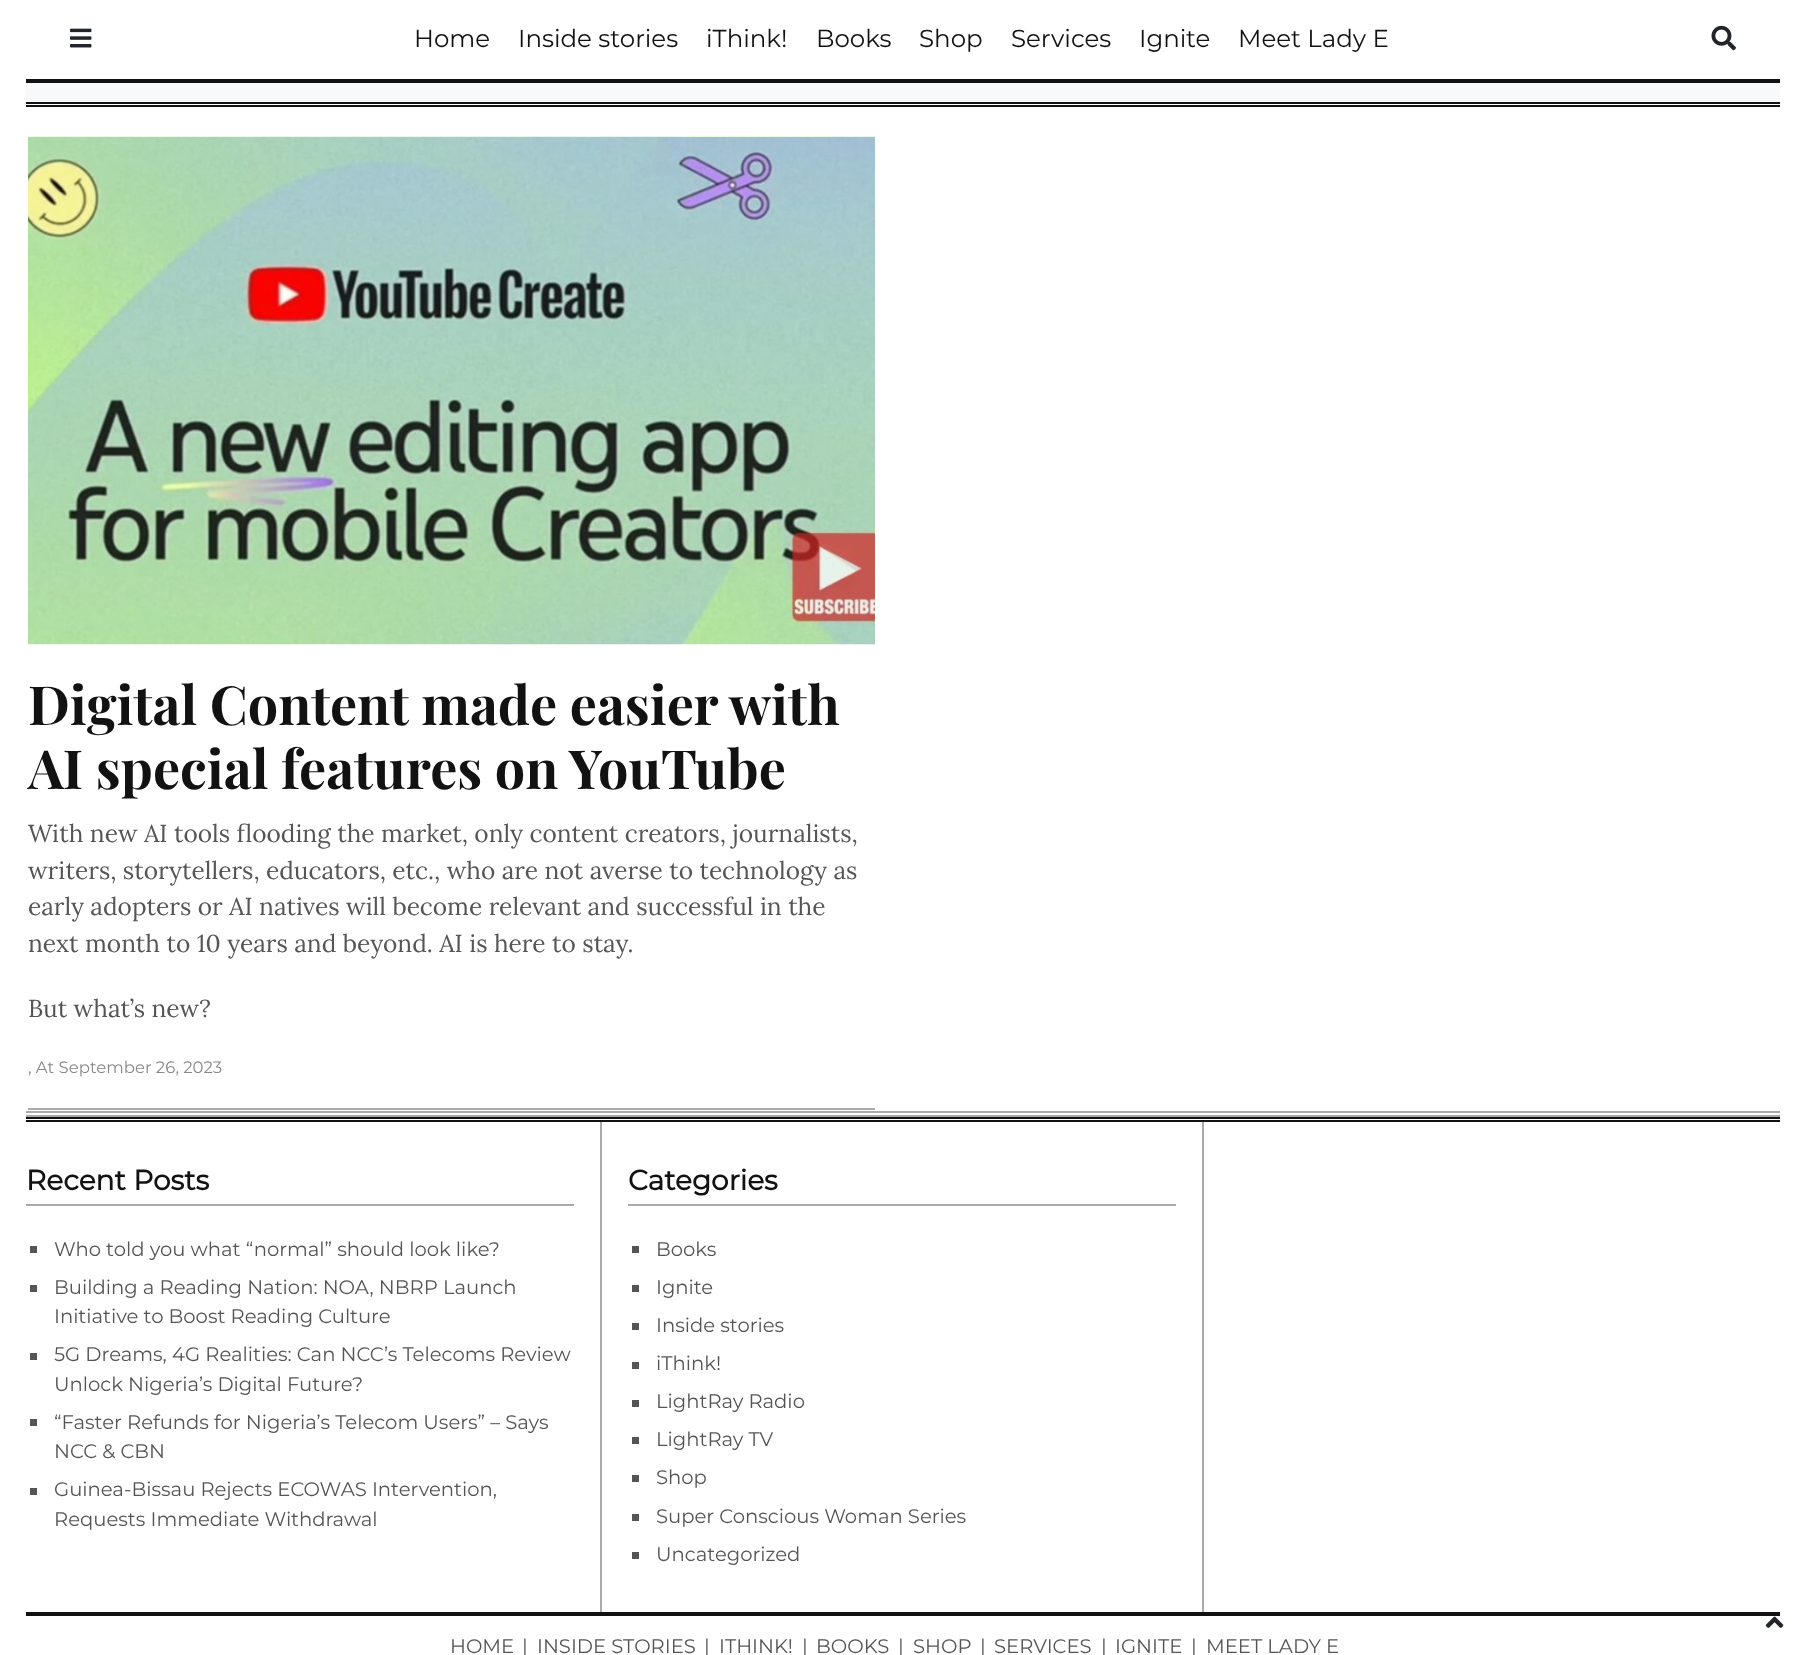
<svg xmlns="http://www.w3.org/2000/svg" width="1805" height="1655">
<style>
.a{font:100 24.5px Montserrat;fill:#121212}
.b{font:bold 53.9px Playfair Display;fill:#121212}
.c{font:24.5px Lora;fill:#555}
.d{font:100 16.5px Montserrat;fill:#888}
.e{font:bold 28px Montserrat;fill:#121212}
.f{font:100 19.6px Montserrat;fill:#555}
</style>
<rect width="100%" height="100%" fill="#fff"/>
<image href="1.png" x="70" y="28" width="22" height="20"/>
<image href="2.png" x="1711" y="25" width="25" height="26"/>
<path fill="#121212" d="M26 79h1754v4H26z"/>
<path fill="#f8f9fa" d="M26 83h1754v19H26z"/>
<path fill="#121212" d="M26 102h1754v2H26z"/>
<path fill="#121212" d="M26 105h1754v2H26z"/>
<image href="3.png" x="28" y="136" width="847" height="509"/>
<path fill="#aaa" d="M28 1108h847v2H28z"/>
<path fill="#aaa" d="M26 1111h1754v2H26z"/>
<path fill="#aaa" d="M26 1115h1754v2H26z"/>
<path fill="#121212" d="M26 1117h1754v2H26z"/>
<path fill="#121212" d="M26 1120h1754v2H26z"/>
<path fill="#aaa" d="M600 1122h2v490H600z"/>
<path fill="#aaa" d="M26 1204h548v2H26z"/>
<path fill="#555" d="M30 1246h7v7H30z"/>
<path fill="#555" d="M30 1285h7v7H30z"/>
<path fill="#555" d="M30 1353h7v7H30z"/>
<path fill="#555" d="M30 1419h7v7H30z"/>
<path fill="#555" d="M30 1488h7v7H30z"/>
<path fill="#aaa" d="M1202 1122h2v490H1202z"/>
<path fill="#aaa" d="M628 1204h548v2H628z"/>
<path fill="#555" d="M632 1246h7v7H632z"/>
<path fill="#555" d="M632 1285h7v7H632z"/>
<path fill="#555" d="M632 1323h7v7H632z"/>
<path fill="#555" d="M632 1362h7v7H632z"/>
<path fill="#555" d="M632 1400h7v7H632z"/>
<path fill="#555" d="M632 1437h7v7H632z"/>
<path fill="#555" d="M632 1475h7v7H632z"/>
<path fill="#555" d="M632 1514h7v7H632z"/>
<path fill="#555" d="M632 1552h7v7H632z"/>
<path fill="#121212" d="M26 1612h1754v4H26z"/>
<image href="4.png" x="1765" y="1616" width="19" height="12"/>
<text class="a" x="414" y="47">Home</text>
<text class="a" x="518" y="47">Inside stories</text>
<text class="a" x="706" y="47">iThink!</text>
<text class="a" x="816" y="47">Books</text>
<text class="a" x="919" y="47">Shop</text>
<text class="a" x="1011" y="47">Services</text>
<text class="a" x="1139" y="47">Ignite</text>
<text class="a" x="1238" y="47">Meet Lady E</text>
<text class="b" x="28" y="725">Digital Content made easier with</text>
<text class="b" x="28" y="789">AI special features on YouTube</text>
<text class="c" x="28" y="842">With new AI tools flooding the market, only content creators, journalists,</text>
<text class="c" x="28" y="879">writers, storytellers, educators, etc., who are not averse to technology as</text>
<text class="c" x="28" y="915">early adopters or AI natives will become relevant and successful in the</text>
<text class="c" x="28" y="952">next month to 10 years and beyond. AI is here to stay.</text>
<text class="c" x="28" y="1017">But what’s new?</text>
<text class="d" x="28" y="1073">, At September 26, 2023</text>
<text class="e" x="26" y="1190">Recent Posts</text>
<text class="f" x="54" y="1256">Who told you what “normal” should look like?</text>
<text class="f" x="54" y="1294">Building a Reading Nation: NOA, NBRP Launch</text>
<text class="f" x="54" y="1323">Initiative to Boost Reading Culture</text>
<text class="f" x="54" y="1361">5G Dreams, 4G Realities: Can NCC’s Telecoms Review</text>
<text class="f" x="54" y="1391">Unlock Nigeria’s Digital Future?</text>
<text class="f" x="54" y="1429">“Faster Refunds for Nigeria’s Telecom Users” – Says</text>
<text class="f" x="54" y="1458">NCC &amp; CBN</text>
<text class="f" x="54" y="1496">Guinea-Bissau Rejects ECOWAS Intervention,</text>
<text class="f" x="54" y="1526">Requests Immediate Withdrawal</text>
<text class="e" x="628" y="1190">Categories</text>
<text class="f" x="656" y="1256">Books</text>
<text class="f" x="656" y="1294">Ignite</text>
<text class="f" x="656" y="1332">Inside stories</text>
<text class="f" x="656" y="1370">iThink!</text>
<text class="f" x="656" y="1408">LightRay Radio</text>
<text class="f" x="656" y="1446">LightRay TV</text>
<text class="f" x="656" y="1484">Shop</text>
<text class="f" x="656" y="1523">Super Conscious Woman Series</text>
<text class="f" x="656" y="1561">Uncategorized</text>
<text class="f" x="450" y="1653">HOME</text>
<text class="f" x="522" y="1653">|</text>
<text class="f" x="537" y="1653">INSIDE STORIES</text>
<text class="f" x="704" y="1653">|</text>
<text class="f" x="719" y="1653">ITHINK!</text>
<text class="f" x="802" y="1653">|</text>
<text class="f" x="816" y="1653">BOOKS</text>
<text class="f" x="898" y="1653">|</text>
<text class="f" x="913" y="1653">SHOP</text>
<text class="f" x="980" y="1653">|</text>
<text class="f" x="994" y="1653">SERVICES</text>
<text class="f" x="1101" y="1653">|</text>
<text class="f" x="1115" y="1653">IGNITE</text>
<text class="f" x="1191" y="1653">|</text>
<text class="f" x="1206" y="1653">MEET LADY E</text>
</svg>
